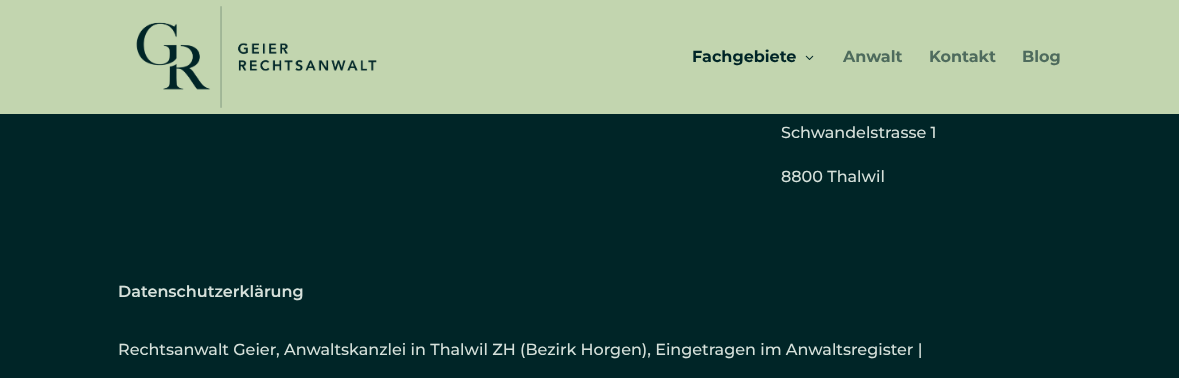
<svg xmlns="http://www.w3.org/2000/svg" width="1179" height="378">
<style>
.a{font:100 16px 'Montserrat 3';fill:#002527}
.b{font:100 16px 'Montserrat 3';fill:#4e6b5d}
.c{font:100 16px 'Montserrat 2';fill:#d6e1db}
.d{font:100 16px Montserrat;fill:#d6e1db}
</style>
<rect width="100%" height="100%" fill="#002527"/>
<path fill="#c2d5af" d="M0 0h1179v114H0z"/>
<image href="1.png" x="136" y="6" width="241" height="102"/>
<image href="2.png" x="805" y="55" width="9" height="5"/>
<text class="a" x="692" y="62">Fachgebiete</text>
<text class="b" x="843" y="62">Anwalt</text>
<text class="b" x="929" y="62">Kontakt</text>
<text class="b" x="1022" y="62">Blog</text>
<text class="c" x="781" y="138">Schwandelstrasse 1</text>
<text class="c" x="781" y="182">8800 Thalwil</text>
<text class="d" x="118" y="297">Datenschutzerklärung</text>
<text class="c" x="118" y="355">Rechtsanwalt Geier, Anwaltskanzlei in Thalwil ZH (Bezirk Horgen), Eingetragen im Anwaltsregister |</text>
</svg>
